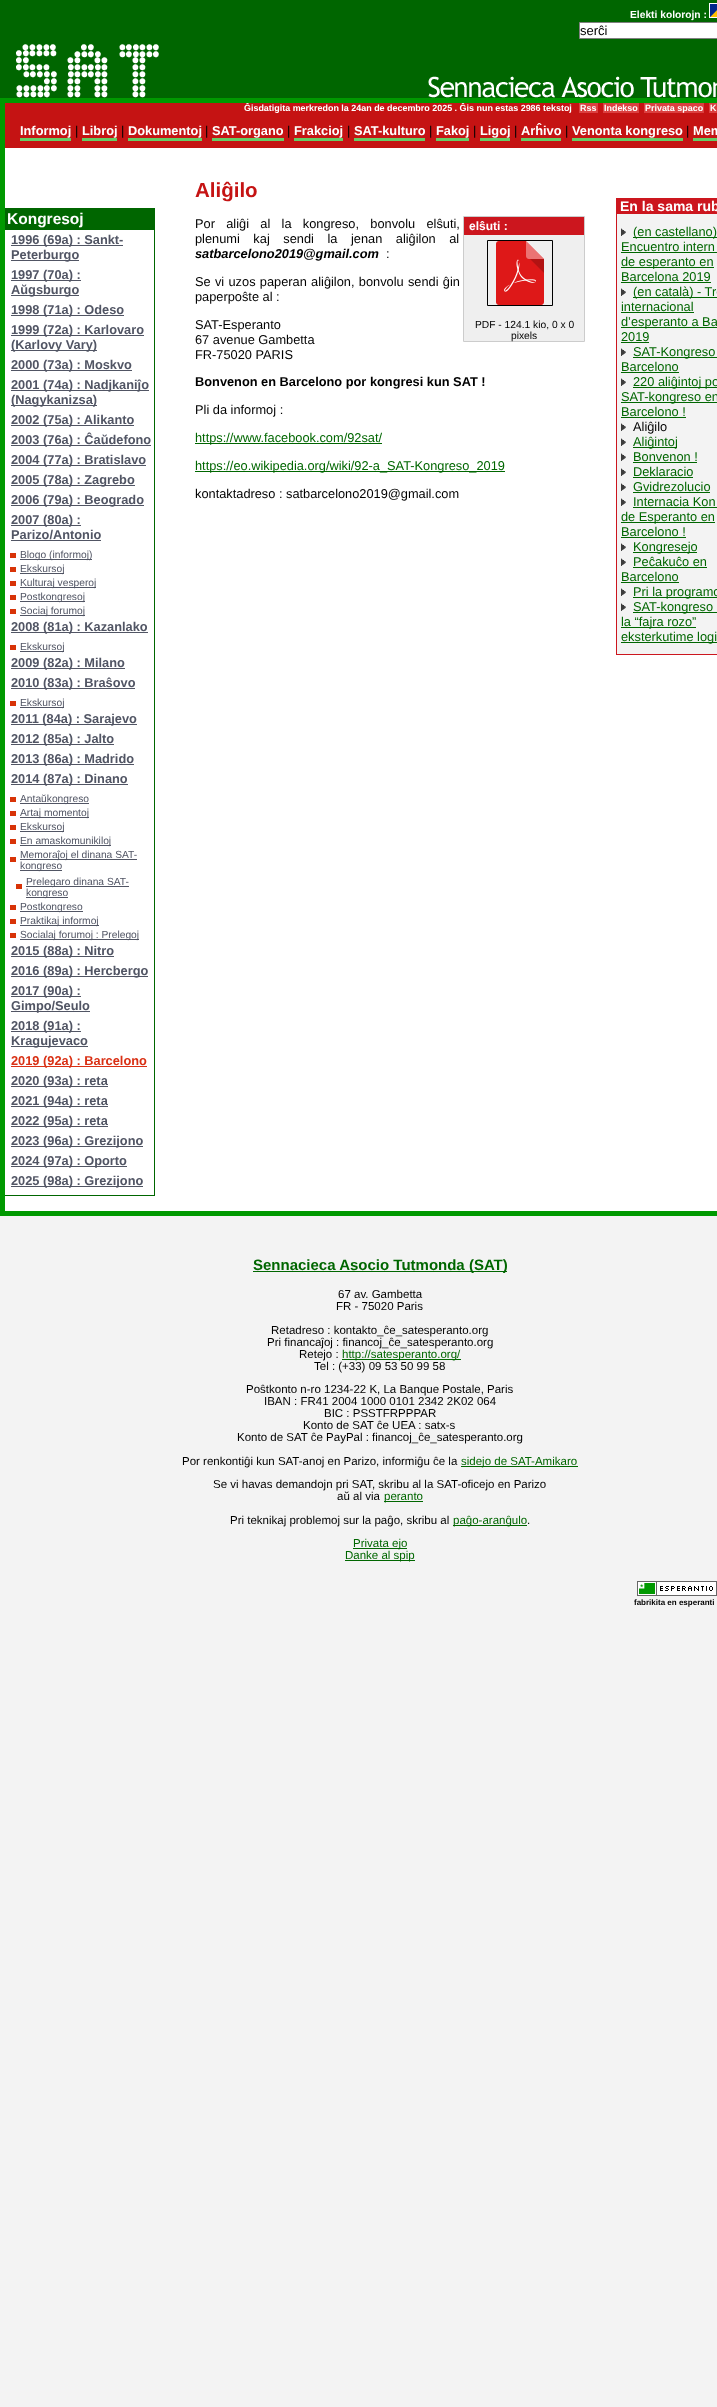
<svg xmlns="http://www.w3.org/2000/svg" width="717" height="2407">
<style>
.a{font:bold 10.25px Liberation Sans;fill:#fff}
.b{font:13px Liberation Sans;fill:#000}
.c{font:bold 8.95px Liberation Sans;fill:#fff}
.d{font:bold 12.8px Liberation Sans;fill:#fff}
.e{font:12.8px Liberation Sans;fill:#000}
.f{font:bold 15.5px Liberation Sans;fill:#fff}
.g{font:bold 12.8px Liberation Sans;fill:#515564}
.h{font:10.25px Liberation Sans;fill:#515564}
.i{font:bold 12.8px Liberation Sans;fill:#d93014}
.j{font:bold 20.5px Liberation Sans;fill:#c51313}
.k{font:italic bold 12.8px Liberation Sans;fill:#000}
.l{font:bold 12.8px Liberation Sans;fill:#000}
.m{font:12.8px Liberation Sans;fill:#060}
.n{font:bold 12px Liberation Sans;fill:#fff}
.o{font:10.25px Liberation Sans;fill:#000}
.p{font:bold 14px Liberation Sans;fill:#fff}
.q{font:bold 15px Liberation Sans;fill:#060}
.r{font:11.5px Liberation Sans;fill:#000}
.s{font:11.5px Liberation Sans;fill:#060}
.t{font:bold 8px Liberation Sans;fill:#000}
</style>
<rect width="100%" height="100%" fill="#f3f3f3"/>
<path fill="#060" d="M0 0h717v41H0z"/>
<image href="1.png" x="709" y="3" width="8" height="15"/>
<path fill="#fff" stroke="#808080" d="M579.5 22.5h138v16H579.5z"/>
<image href="2.png" x="0" y="41" width="717" height="57"/>
<path fill="#fff" d="M5 148h712v1063H5z"/>
<path fill="none" stroke="#090" stroke-width="5" d="M2.5 100.5h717v1113H2.5z"/>
<path fill="#c51313" d="M5 103h712v45H5z"/>
<path fill="#db4040" d="M579 103h19v10H579z"/>
<path fill="#db4040" d="M603 103h36v10H603z"/>
<path fill="#db4040" d="M644 103h60v10H644z"/>
<path fill="#db4040" d="M709 103h8v10H709z"/>
<path fill="#6c6" d="M20 138h51v3H20z"/>
<path fill="#6c6" d="M82 138h35v3H82z"/>
<path fill="#6c6" d="M128 138h74v3H128z"/>
<path fill="#6c6" d="M212 138h72v3H212z"/>
<path fill="#6c6" d="M294 138h49v3H294z"/>
<path fill="#6c6" d="M354 138h71v3H354z"/>
<path fill="#6c6" d="M436 138h33v3H436z"/>
<path fill="#6c6" d="M480 138h30v3H480z"/>
<path fill="#6c6" d="M521 138h40v3H521z"/>
<path fill="#6c6" d="M572 138h111v3H572z"/>
<path fill="#6c6" d="M693 138h24v3H693z"/>
<path fill="#060" d="M154 208h1v988H154z"/>
<path fill="#060" d="M5 1195h150v1H5z"/>
<path fill="#060" d="M5 208h149v22H5z"/>
<path fill="#515564" d="M11 245h112v1H11z"/>
<path fill="#515564" d="M11 260h68v1H11z"/>
<path fill="#515564" d="M11 280h70v1H11z"/>
<path fill="#515564" d="M11 295h68v1H11z"/>
<path fill="#515564" d="M11 315h113v1H11z"/>
<path fill="#515564" d="M11 335h133v1H11z"/>
<path fill="#515564" d="M11 350h86v1H11z"/>
<path fill="#515564" d="M11 370h121v1H11z"/>
<path fill="#515564" d="M11 390h138v1H11z"/>
<path fill="#515564" d="M11 405h86v1H11z"/>
<path fill="#515564" d="M11 425h123v1H11z"/>
<path fill="#515564" d="M11 445h140v1H11z"/>
<path fill="#515564" d="M11 465h135v1H11z"/>
<path fill="#515564" d="M11 485h124v1H11z"/>
<path fill="#515564" d="M11 505h133v1H11z"/>
<path fill="#515564" d="M11 525h70v1H11z"/>
<path fill="#515564" d="M11 540h90v1H11z"/>
<path fill="#d83307" d="M10 553h6v5H10z"/>
<path fill="#515564" d="M20 559h72v1H20z"/>
<path fill="#d83307" d="M10 567h6v5H10z"/>
<path fill="#515564" d="M20 573h44v1H20z"/>
<path fill="#d83307" d="M10 581h6v5H10z"/>
<path fill="#515564" d="M20 587h76v1H20z"/>
<path fill="#d83307" d="M10 595h6v5H10z"/>
<path fill="#515564" d="M20 601h65v1H20z"/>
<path fill="#d83307" d="M10 609h6v5H10z"/>
<path fill="#515564" d="M20 615h65v1H20z"/>
<path fill="#515564" d="M11 632h137v1H11z"/>
<path fill="#d83307" d="M10 645h6v5H10z"/>
<path fill="#515564" d="M20 651h44v1H20z"/>
<path fill="#515564" d="M11 668h114v1H11z"/>
<path fill="#515564" d="M11 688h124v1H11z"/>
<path fill="#d83307" d="M10 701h6v5H10z"/>
<path fill="#515564" d="M20 707h44v1H20z"/>
<path fill="#515564" d="M11 724h126v1H11z"/>
<path fill="#515564" d="M11 744h103v1H11z"/>
<path fill="#515564" d="M11 764h123v1H11z"/>
<path fill="#515564" d="M11 784h117v1H11z"/>
<path fill="#d83307" d="M10 797h6v5H10z"/>
<path fill="#515564" d="M20 803h69v1H20z"/>
<path fill="#d83307" d="M10 811h6v5H10z"/>
<path fill="#515564" d="M20 817h69v1H20z"/>
<path fill="#d83307" d="M10 825h6v5H10z"/>
<path fill="#515564" d="M20 831h44v1H20z"/>
<path fill="#d83307" d="M10 839h6v5H10z"/>
<path fill="#515564" d="M20 845h91v1H20z"/>
<path fill="#d83307" d="M10 857h6v5H10z"/>
<path fill="#515564" d="M20 859h117v1H20z"/>
<path fill="#515564" d="M20 870h42v1H20z"/>
<path fill="#d83307" d="M16 884h6v5H16z"/>
<path fill="#515564" d="M26 886h103v1H26z"/>
<path fill="#515564" d="M26 897h42v1H26z"/>
<path fill="#d83307" d="M10 905h6v5H10z"/>
<path fill="#515564" d="M20 911h63v1H20z"/>
<path fill="#d83307" d="M10 919h6v5H10z"/>
<path fill="#515564" d="M20 925h79v1H20z"/>
<path fill="#d83307" d="M10 933h6v5H10z"/>
<path fill="#515564" d="M20 939h119v1H20z"/>
<path fill="#515564" d="M11 956h103v1H11z"/>
<path fill="#515564" d="M11 976h137v1H11z"/>
<path fill="#515564" d="M11 996h70v1H11z"/>
<path fill="#515564" d="M11 1011h79v1H11z"/>
<path fill="#515564" d="M11 1031h70v1H11z"/>
<path fill="#515564" d="M11 1046h77v1H11z"/>
<path fill="#d93014" d="M11 1066h136v1H11z"/>
<path fill="#515564" d="M11 1086h97v1H11z"/>
<path fill="#515564" d="M11 1106h97v1H11z"/>
<path fill="#515564" d="M11 1126h97v1H11z"/>
<path fill="#515564" d="M11 1146h132v1H11z"/>
<path fill="#515564" d="M11 1166h116v1H11z"/>
<path fill="#515564" d="M11 1186h132v1H11z"/>
<path fill="#060" d="M195 443h187v1H195z"/>
<path fill="#060" d="M195 471h310v1H195z"/>
<path fill="#efefef" d="M464 235h120v106H464z"/>
<path fill="none" stroke="#ccc" d="M463.5 216.5h121v125H463.5z"/>
<path fill="#cc161e" d="M464 217h120v18H464z"/>
<path fill="none" stroke="#000" d="M487.5 240.5h65v65H487.5z"/>
<image href="3.png" x="496" y="241" width="48" height="64"/>
<path fill="#f3f3f3" d="M617 214h100v440H617z"/>
<path fill="#cc161e" d="M616 654h101v1H616z"/>
<path fill="#cc161e" d="M616 198h1v457H616z"/>
<path fill="#cc161e" d="M617 198h100v16H617z"/>
<image href="4.png" x="621" y="228" width="5" height="8"/>
<path fill="#060" d="M633 237h84v1H633z"/>
<path fill="#060" d="M621 252h96v1H621z"/>
<path fill="#060" d="M621 267h93v1H621z"/>
<path fill="#060" d="M621 282h90v1H621z"/>
<image href="4.png" x="621" y="288" width="5" height="8"/>
<path fill="#060" d="M633 297h84v1H633z"/>
<path fill="#060" d="M621 312h73v1H621z"/>
<path fill="#060" d="M621 327h96v1H621z"/>
<path fill="#060" d="M621 342h28v1H621z"/>
<image href="4.png" x="621" y="348" width="5" height="8"/>
<path fill="#060" d="M633 357h84v1H633z"/>
<path fill="#060" d="M621 372h58v1H621z"/>
<image href="4.png" x="621" y="378" width="5" height="8"/>
<path fill="#060" d="M633 387h84v1H633z"/>
<path fill="#060" d="M621 402h96v1H621z"/>
<path fill="#060" d="M621 417h65v1H621z"/>
<image href="4.png" x="621" y="423" width="5" height="8"/>
<image href="4.png" x="621" y="438" width="5" height="8"/>
<path fill="#060" d="M633 447h44v1H633z"/>
<image href="4.png" x="621" y="453" width="5" height="8"/>
<path fill="#060" d="M633 462h64v1H633z"/>
<image href="4.png" x="621" y="468" width="5" height="8"/>
<path fill="#060" d="M633 477h60v1H633z"/>
<image href="4.png" x="621" y="483" width="5" height="8"/>
<path fill="#060" d="M633 492h77v1H633z"/>
<image href="4.png" x="621" y="498" width="5" height="8"/>
<path fill="#060" d="M633 507h84v1H633z"/>
<path fill="#060" d="M621 522h94v1H621z"/>
<path fill="#060" d="M621 537h65v1H621z"/>
<image href="4.png" x="621" y="543" width="5" height="8"/>
<path fill="#060" d="M633 552h64v1H633z"/>
<image href="4.png" x="621" y="558" width="5" height="8"/>
<path fill="#060" d="M633 567h74v1H633z"/>
<path fill="#060" d="M621 582h58v1H621z"/>
<image href="4.png" x="621" y="588" width="5" height="8"/>
<path fill="#060" d="M633 597h84v1H633z"/>
<image href="4.png" x="621" y="603" width="5" height="8"/>
<path fill="#060" d="M633 612h84v1H633z"/>
<path fill="#060" d="M621 627h75v1H621z"/>
<path fill="#060" d="M621 642h96v1H621z"/>
<path fill="#060" d="M253 1271h254v1H253z"/>
<path fill="#060" d="M342 1359h119v1H342z"/>
<path fill="#060" d="M461 1466h117v1H461z"/>
<path fill="#060" d="M384 1501h39v1H384z"/>
<path fill="#060" d="M453 1525h74v1H453z"/>
<path fill="#060" d="M353 1548h54v1H353z"/>
<path fill="#060" d="M345 1560h70v1H345z"/>
<image href="5.png" x="637" y="1581" width="80" height="15"/>
<text class="a" x="630" y="18">Elekti kolorojn :</text>
<text class="b" x="580" y="35">serĉi</text>
<text class="c" x="244" y="111">Ĝisdatigita merkredon la 24an de decembro 2025 . Ĝis nun estas 2986 tekstoj</text>
<text class="c" x="580" y="111">Rss</text>
<text class="c" x="604" y="111">Indekso</text>
<text class="c" x="645" y="111">Privata spaco</text>
<text class="c" x="710" y="111">K</text>
<text class="d" x="20" y="135">Informoj</text>
<text class="e" x="75" y="135">|</text>
<text class="d" x="82" y="135">Libroj</text>
<text class="e" x="121" y="135">|</text>
<text class="d" x="128" y="135">Dokumentoj</text>
<text class="e" x="205" y="135">|</text>
<text class="d" x="212" y="135">SAT-organo</text>
<text class="e" x="287" y="135">|</text>
<text class="d" x="294" y="135">Frakcioj</text>
<text class="e" x="347" y="135">|</text>
<text class="d" x="354" y="135">SAT-kulturo</text>
<text class="e" x="429" y="135">|</text>
<text class="d" x="436" y="135">Fakoj</text>
<text class="e" x="473" y="135">|</text>
<text class="d" x="480" y="135">Ligoj</text>
<text class="e" x="514" y="135">|</text>
<text class="d" x="521" y="135">Arĥivo</text>
<text class="e" x="565" y="135">|</text>
<text class="d" x="572" y="135">Venonta kongreso</text>
<text class="e" x="686" y="135">|</text>
<text class="d" x="693" y="135">Mem</text>
<text class="f" x="7" y="224">Kongresoj</text>
<text class="g" x="11" y="244">1996 (69a) : Sankt-</text>
<text class="g" x="11" y="259">Peterburgo</text>
<text class="g" x="11" y="279">1997 (70a) :</text>
<text class="g" x="11" y="294">Aŭgsburgo</text>
<text class="g" x="11" y="314">1998 (71a) : Odeso</text>
<text class="g" x="11" y="334">1999 (72a) : Karlovaro</text>
<text class="g" x="11" y="349">(Karlovy Vary)</text>
<text class="g" x="11" y="369">2000 (73a) : Moskvo</text>
<text class="g" x="11" y="389">2001 (74a) : Nadjkaniĵo</text>
<text class="g" x="11" y="404">(Nagykanizsa)</text>
<text class="g" x="11" y="424">2002 (75a) : Alikanto</text>
<text class="g" x="11" y="444">2003 (76a) : Ĉaŭdefono</text>
<text class="g" x="11" y="464">2004 (77a) : Bratislavo</text>
<text class="g" x="11" y="484">2005 (78a) : Zagrebo</text>
<text class="g" x="11" y="504">2006 (79a) : Beogrado</text>
<text class="g" x="11" y="524">2007 (80a) :</text>
<text class="g" x="11" y="539">Parizo/Antonio</text>
<text class="h" x="20" y="558">Blogo (informoj)</text>
<text class="h" x="20" y="572">Ekskursoj</text>
<text class="h" x="20" y="586">Kulturaj vesperoj</text>
<text class="h" x="20" y="600">Postkongresoj</text>
<text class="h" x="20" y="614">Sociaj forumoj</text>
<text class="g" x="11" y="631">2008 (81a) : Kazanlako</text>
<text class="h" x="20" y="650">Ekskursoj</text>
<text class="g" x="11" y="667">2009 (82a) : Milano</text>
<text class="g" x="11" y="687">2010 (83a) : Braŝovo</text>
<text class="h" x="20" y="706">Ekskursoj</text>
<text class="g" x="11" y="723">2011 (84a) : Sarajevo</text>
<text class="g" x="11" y="743">2012 (85a) : Jalto</text>
<text class="g" x="11" y="763">2013 (86a) : Madrido</text>
<text class="g" x="11" y="783">2014 (87a) : Dinano</text>
<text class="h" x="20" y="802">Antaŭkongreso</text>
<text class="h" x="20" y="816">Artaj momentoj</text>
<text class="h" x="20" y="830">Ekskursoj</text>
<text class="h" x="20" y="844">En amaskomunikiloj</text>
<text class="h" x="20" y="858">Memoraĵoj el dinana SAT-</text>
<text class="h" x="20" y="869">kongreso</text>
<text class="h" x="26" y="885">Prelegaro dinana SAT-</text>
<text class="h" x="26" y="896">kongreso</text>
<text class="h" x="20" y="910">Postkongreso</text>
<text class="h" x="20" y="924">Praktikaj informoj</text>
<text class="h" x="20" y="938">Socialaj forumoj : Prelegoj</text>
<text class="g" x="11" y="955">2015 (88a) : Nitro</text>
<text class="g" x="11" y="975">2016 (89a) : Hercbergo</text>
<text class="g" x="11" y="995">2017 (90a) :</text>
<text class="g" x="11" y="1010">Gimpo/Seulo</text>
<text class="g" x="11" y="1030">2018 (91a) :</text>
<text class="g" x="11" y="1045">Kragujevaco</text>
<text class="i" x="11" y="1065">2019 (92a) : Barcelono</text>
<text class="g" x="11" y="1085">2020 (93a) : reta</text>
<text class="g" x="11" y="1105">2021 (94a) : reta</text>
<text class="g" x="11" y="1125">2022 (95a) : reta</text>
<text class="g" x="11" y="1145">2023 (96a) : Grezijono</text>
<text class="g" x="11" y="1165">2024 (97a) : Oporto</text>
<text class="g" x="11" y="1185">2025 (98a) : Grezijono</text>
<text class="j" x="195" y="197">Aliĝilo</text>
<text class="e" x="195" y="228" word-spacing="7.75">Por aliĝi al la kongreso, bonvolu elŝuti,</text>
<text class="e" x="195" y="243" word-spacing="10">plenumi kaj sendi la jenan aliĝilon al</text>
<text class="k" x="195" y="258">satbarcelono2019@gmail.com</text>
<text class="e" x="386" y="258">:</text>
<text class="e" x="195" y="286" word-spacing="0.75">Se vi uzos paperan aliĝilon, bonvolu sendi ĝin</text>
<text class="e" x="195" y="301">paperpoŝte al :</text>
<text class="e" x="195" y="329">SAT-Esperanto</text>
<text class="e" x="195" y="344">67 avenue Gambetta</text>
<text class="e" x="195" y="359">FR-75020 PARIS</text>
<text class="l" x="195" y="386">Bonvenon en Barcelono por kongresi kun SAT !</text>
<text class="e" x="195" y="414">Pli da informoj :</text>
<text class="m" x="195" y="442">https://www.facebook.com/92sat/</text>
<text class="m" x="195" y="470">https://eo.wikipedia.org/wiki/92-a_SAT-Kongreso_2019</text>
<text class="e" x="195" y="498">kontaktadreso : satbarcelono2019@gmail.com</text>
<text class="n" x="469" y="230">elŝuti :</text>
<text class="o" x="475" y="328">PDF - 124.1 kio, 0 x 0</text>
<text class="o" x="511" y="339">pixels</text>
<text class="p" x="620" y="211">En la sama rub</text>
<text class="m" x="633" y="236">(en castellano)</text>
<text class="m" x="621" y="251">Encuentro intern</text>
<text class="m" x="621" y="266">de esperanto en</text>
<text class="m" x="621" y="281">Barcelona 2019</text>
<text class="m" x="633" y="296">(en català) - Tro</text>
<text class="m" x="621" y="311">internacional</text>
<text class="m" x="621" y="326">d’esperanto a Ba</text>
<text class="m" x="621" y="341">2019</text>
<text class="m" x="633" y="356">SAT-Kongreso</text>
<text class="m" x="621" y="371">Barcelono</text>
<text class="m" x="633" y="386">220 aliĝintoj po</text>
<text class="m" x="621" y="401">SAT-kongreso en</text>
<text class="m" x="621" y="416">Barcelono !</text>
<text class="e" x="633" y="431">Aliĝilo</text>
<text class="m" x="633" y="446">Aliĝintoj</text>
<text class="m" x="633" y="461">Bonvenon !</text>
<text class="m" x="633" y="476">Deklaracio</text>
<text class="m" x="633" y="491">Gvidrezolucio</text>
<text class="m" x="633" y="506">Internacia Kon</text>
<text class="m" x="621" y="521">de Esperanto en</text>
<text class="m" x="621" y="536">Barcelono !</text>
<text class="m" x="633" y="551">Kongresejo</text>
<text class="m" x="633" y="566">Peĉakuĉo en</text>
<text class="m" x="621" y="581">Barcelono</text>
<text class="m" x="633" y="596">Pri la programo</text>
<text class="m" x="633" y="611">SAT-kongreso</text>
<text class="m" x="621" y="626">la “fajra rozo”</text>
<text class="m" x="621" y="641">eksterkutime logi</text>
<text class="q" x="253" y="1270">Sennacieca Asocio Tutmonda (SAT)</text>
<text class="r" x="338" y="1298">67 av. Gambetta</text>
<text class="r" x="336" y="1310">FR - 75020 Paris</text>
<text class="r" x="271" y="1334">Retadreso : kontakto_ĉe_satesperanto.org</text>
<text class="r" x="267" y="1346">Pri financaĵoj : financoj_ĉe_satesperanto.org</text>
<text class="r" x="299" y="1358">Retejo :</text>
<text class="s" x="342" y="1358">http://satesperanto.org/</text>
<text class="r" x="314" y="1370">Tel : (+33) 09 53 50 99 58</text>
<text class="r" x="246" y="1393">Poŝtkonto n-ro 1234-22 K, La Banque Postale, Paris</text>
<text class="r" x="264" y="1405">IBAN : FR41 2004 1000 0101 2342 2K02 064</text>
<text class="r" x="324" y="1417">BIC : PSSTFRPPPAR</text>
<text class="r" x="303" y="1429">Konto de SAT ĉe UEA : satx-s</text>
<text class="r" x="237" y="1441">Konto de SAT ĉe PayPal : financoj_ĉe_satesperanto.org</text>
<text class="r" x="182" y="1465">Por renkontiĝi kun SAT-anoj en Parizo, informiĝu ĉe la</text>
<text class="s" x="461" y="1465">sidejo de SAT-Amikaro</text>
<text class="r" x="213" y="1488">Se vi havas demandojn pri SAT, skribu al la SAT-oficejo en Parizo</text>
<text class="r" x="337" y="1500">aŭ al via</text>
<text class="s" x="384" y="1500">peranto</text>
<text class="r" x="230" y="1524">Pri teknikaj problemoj sur la paĝo, skribu al</text>
<text class="s" x="453" y="1524">paĝo-aranĝulo</text>
<text class="r" x="527" y="1524">.</text>
<text class="s" x="353" y="1547">Privata ejo</text>
<text class="s" x="345" y="1559">Danke al spip</text>
<text class="t" x="634" y="1605">fabrikita en esperanti</text>
</svg>
